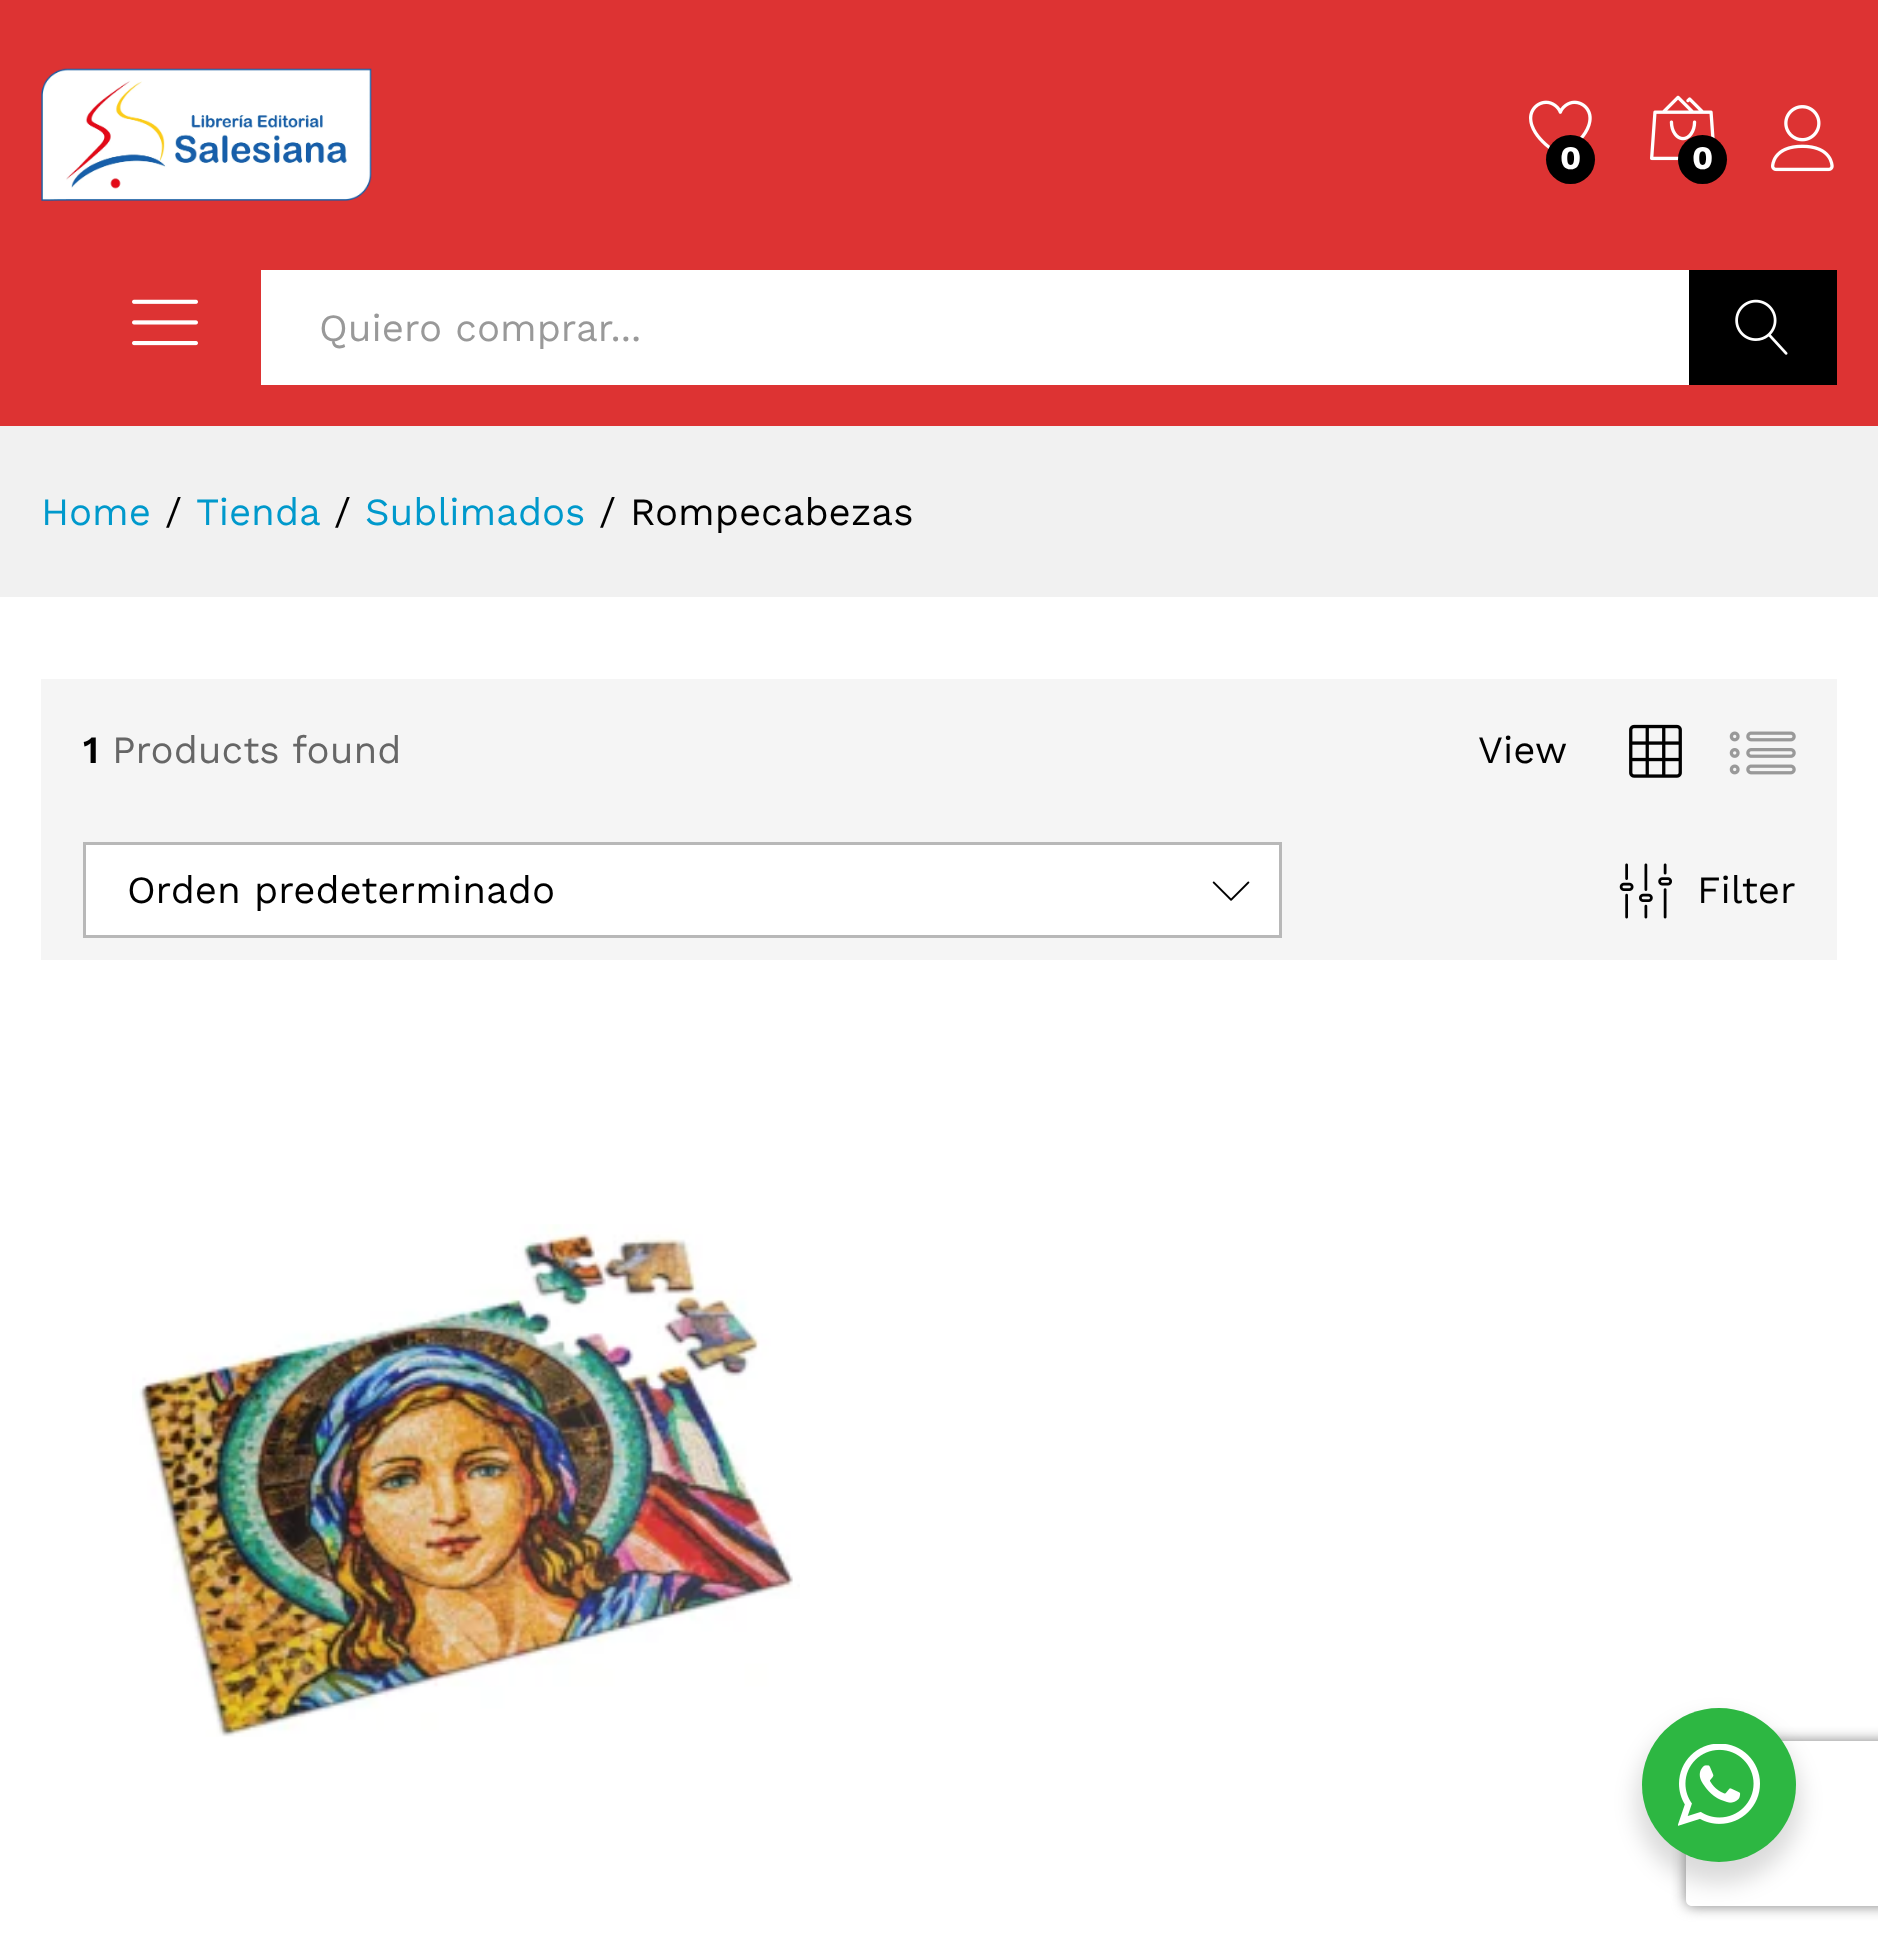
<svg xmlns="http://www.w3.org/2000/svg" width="1878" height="1943">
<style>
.a{font:bold 33px Work Sans;fill:#fff}
.b{font:38.5px Work Sans;fill:#999}
.c{font:38.5px Work Sans;fill:#09c}
.d{font:38.5px Work Sans;fill:#000}
.e{font:600 38.5px Work Sans;fill:#000}
.f{font:38.5px Work Sans;fill:#666}
</style>
<defs>
<clipPath id="clip1"><path d="M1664 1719h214v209h-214zm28 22h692c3.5 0 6 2.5 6 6v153c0 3.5-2.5 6-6 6h-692c-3.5 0-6-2.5-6-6v-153c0-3.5 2.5-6 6-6z" clip-rule="evenodd"/></clipPath>
</defs>
<rect width="100%" height="100%" fill="#fff"/>
<path fill="#d33" d="M0 0h1878v426H0z"/>
<image href="1.png" x="41" y="68" width="331" height="133"/>
<image href="2.png" x="1529" y="100" width="63" height="50"/>
<circle fill="#000" cx="1570.5" cy="159.5" r="24.5"/>
<image href="3.png" x="1650" y="95" width="65" height="66"/>
<circle fill="#000" cx="1702.5" cy="159.5" r="24.5"/>
<image href="4.png" x="1771" y="105" width="63" height="67"/>
<image href="5.png" x="132" y="299" width="66" height="47"/>
<path fill="#fff" d="M261 270h1428v115H261z"/>
<path fill="#000" d="M1689 270h148v115H1689z"/>
<image href="6.png" x="1735" y="299" width="53" height="56"/>
<path fill="#f1f1f1" d="M0 426h1878v171H0z"/>
<path fill="#f5f5f5" d="M41 679h1796v281H41z"/>
<image href="7.png" x="1629" y="724" width="53" height="54"/>
<image href="8.png" x="1729" y="731" width="67" height="44"/>
<path fill="#fff" stroke="#b8b8b8" stroke-width="3" d="M84.5 843.5h1196v93H84.5z"/>
<image href="9.png" x="1212" y="881" width="38" height="20"/>
<image href="10.png" x="1619" y="863" width="53" height="56"/>
<image href="11.png" x="132" y="1224" width="668" height="513"/>
<rect fill="#00000024" filter="blur(11px)" x="1636" y="1719" width="165" height="165" rx="82.5"/>
<g clip-path="url(#clip1)">
<rect fill="#808080" filter="blur(7px)" x="1686" y="1741" width="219" height="165" rx="6"/>
</g>
<circle fill="#2db742" cx="1719" cy="1785" r="77"/>
<image href="12.png" x="1678" y="1744" width="82" height="82"/>
<text class="a" x="1560" y="169">0</text>
<text class="a" x="1692" y="169">0</text>
<text class="b" x="319" y="341">Quiero comprar...</text>
<text class="c" x="41" y="525">Home</text>
<text class="d" x="165" y="525">/</text>
<text class="c" x="196" y="525">Tienda</text>
<text class="d" x="334" y="525">/</text>
<text class="c" x="365" y="525">Sublimados</text>
<text class="d" x="599" y="525">/</text>
<text class="d" x="630" y="525">Rompecabezas</text>
<text class="e" x="83" y="763">1</text>
<text class="f" x="112" y="763">Products found</text>
<text class="d" x="1478" y="763">View</text>
<text class="d" x="127" y="903">Orden predeterminado</text>
<text class="d" x="1697" y="903">Filter</text>
</svg>
